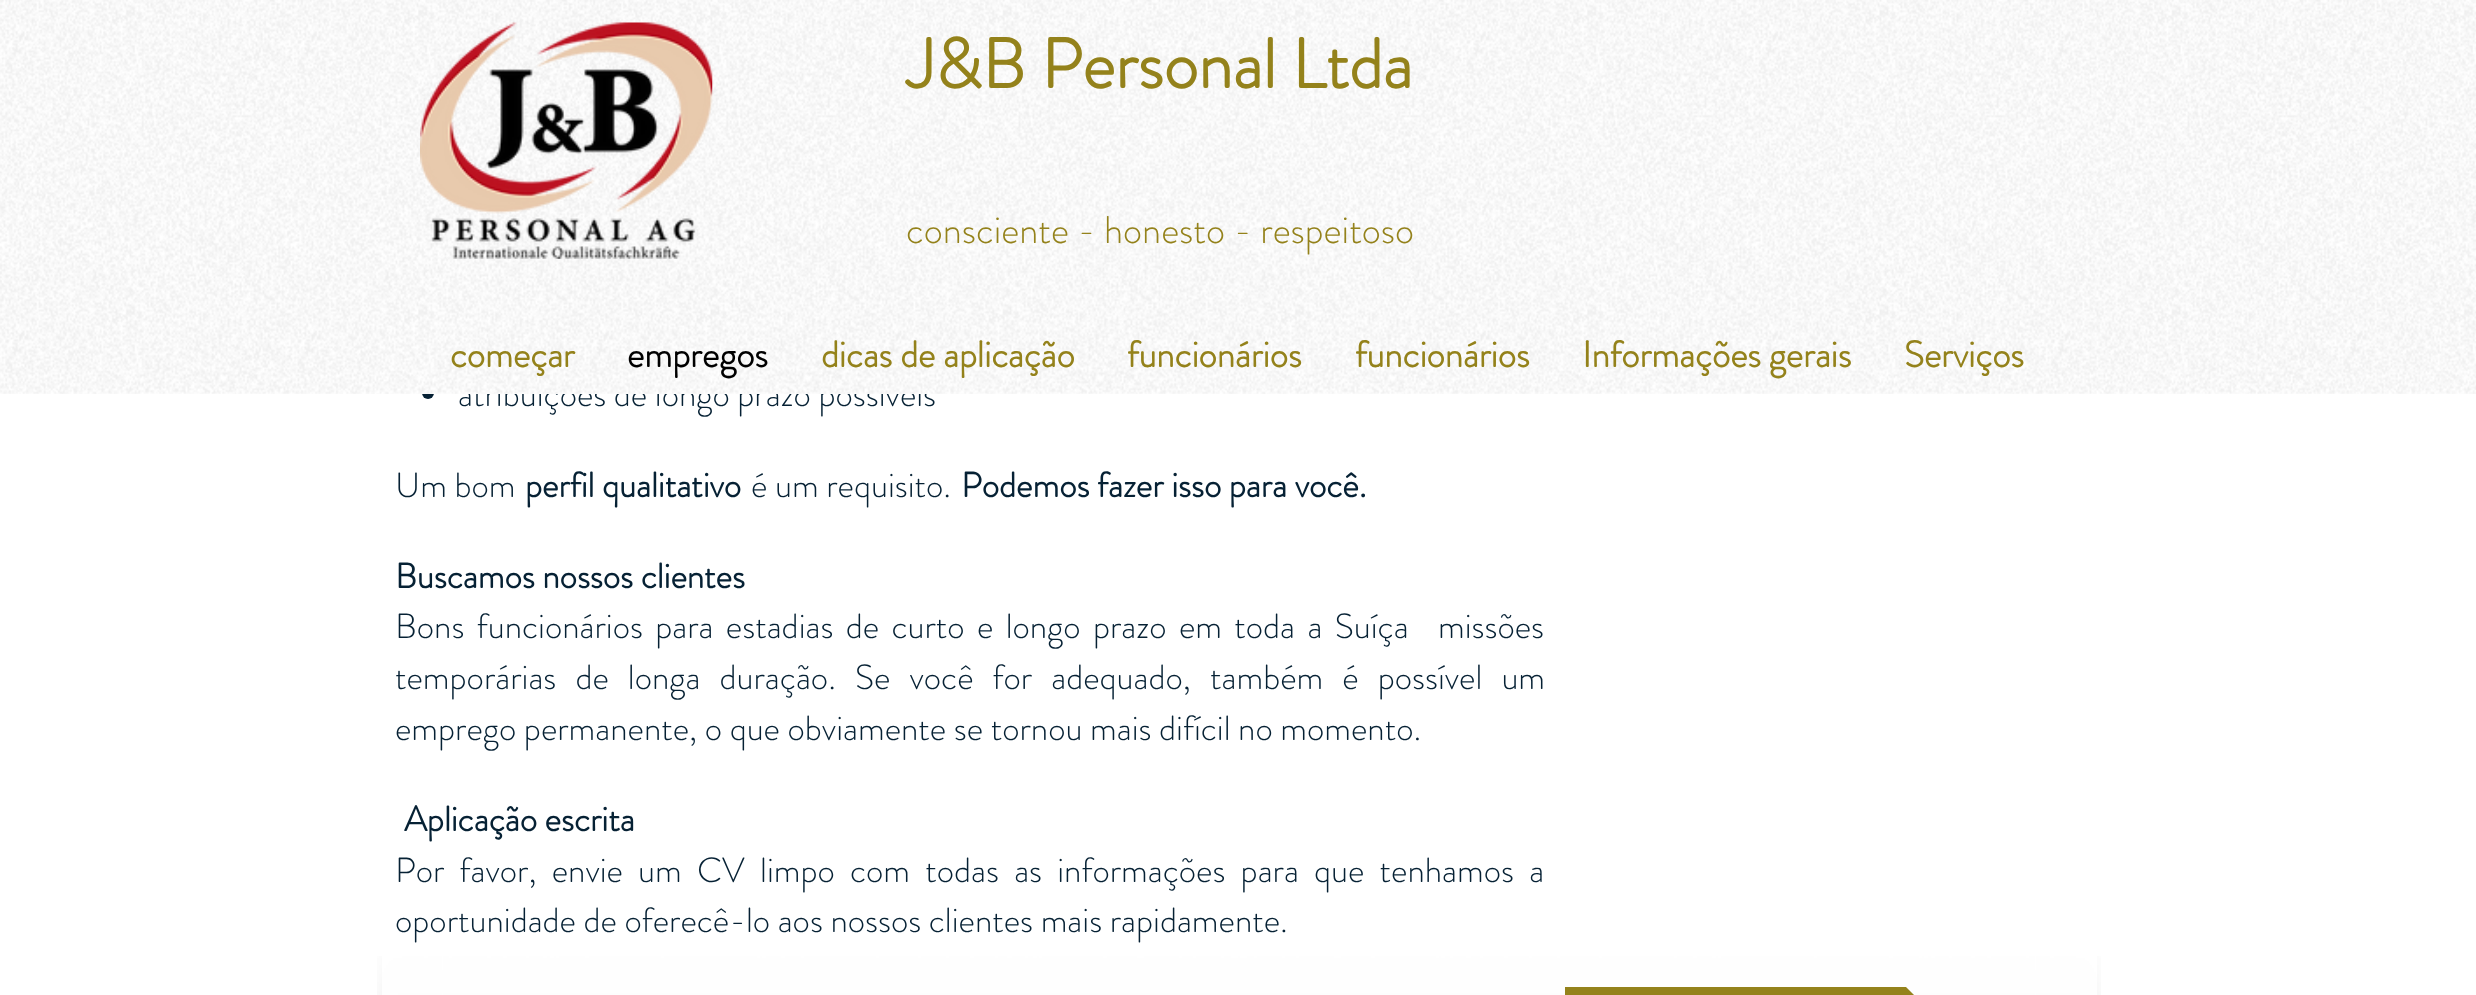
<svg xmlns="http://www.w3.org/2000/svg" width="2476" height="995">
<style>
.a{font:300 35px 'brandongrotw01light';fill:#062134}
.b{font:bold 36.75px 'brandongrotw01light';fill:#94821b}
.c{font:bold 36.75px 'brandongrotw01light';fill:#000}
.d{font:300 38.5px 'brandongrotw01light';fill:#94821b}
.e{font:bold 70px 'brandongrotw01light';fill:#94821b}
.f{font:bold 35px 'brandongrotw01light';fill:#062134}
</style>
<defs>
<clipPath id="clip1"><path d="M1565 987h376v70H1565z"/></clipPath>
</defs>
<rect width="100%" height="100%" fill="#fff"/>
<circle fill="#062134" cx="428" cy="393" r="6"/>
<image href="3.png" x="377" y="956" width="66" height="39"/>
<image href="4.png" x="443" y="956" width="1592" height="39"/>
<image href="5.png" x="2035" y="956" width="66" height="39"/>
<path fill="#ffffffd9" d="M382 956h1715v39H382z"/>
<path fill="#94821b" d="M1565 987h288v8H1565z"/>
<g clip-path="url(#clip1)">
<path fill="#94821b" d="M1941 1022h-88v-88z"/>
</g>
<text class="a" x="458" y="406">atribuições de longo prazo possíveis</text>
<path fill="#fff" d="M422 381h512v13H422z"/>
<image href="1.png" x="0" y="0" width="2476" height="394"/>
<text class="b" x="1904" y="367">Serviços</text>
<text class="b" x="1582" y="367">Informações gerais</text>
<text class="b" x="1355" y="367">funcionários</text>
<text class="b" x="1127" y="367">funcionários</text>
<text class="b" x="821" y="367">dicas de aplicação</text>
<text class="c" x="627" y="367">empregos</text>
<text class="b" x="450" y="367">começar</text>
<text class="d" x="906" y="243">consciente - honesto - respeitoso</text>
<text class="e" x="907" y="88">J&amp;B Personal Ltda</text>
<image href="2.png" x="420" y="22" width="293" height="237"/>
<text class="a" x="395" y="497">Um bom</text>
<text class="f" x="525" y="497">perfil qualitativo</text>
<text class="a" x="751" y="497">é um requisito.</text>
<text class="f" x="961" y="497">Podemos fazer isso para você.</text>
<text class="f" x="395" y="588">Buscamos nossos clientes</text>
<text class="a" x="395" y="638" word-spacing="4.75">Bons funcionários para estadias de curto e longo prazo em toda a Suíça</text>
<text class="a" x="1438" y="638">missões</text>
<text class="a" x="395" y="689" word-spacing="11.5">temporárias de longa duração. Se você for adequado, também é possível um</text>
<text class="a" x="395" y="740">emprego permanente, o que obviamente se tornou mais difícil no momento.</text>
<text class="f" x="404" y="831">Aplicação escrita</text>
<text class="a" x="395" y="882" word-spacing="7.6">Por favor, envie um CV limpo com todas as informações para que tenhamos a</text>
<text class="a" x="395" y="932">oportunidade de oferecê-lo aos nossos clientes mais rapidamente.</text>
</svg>
